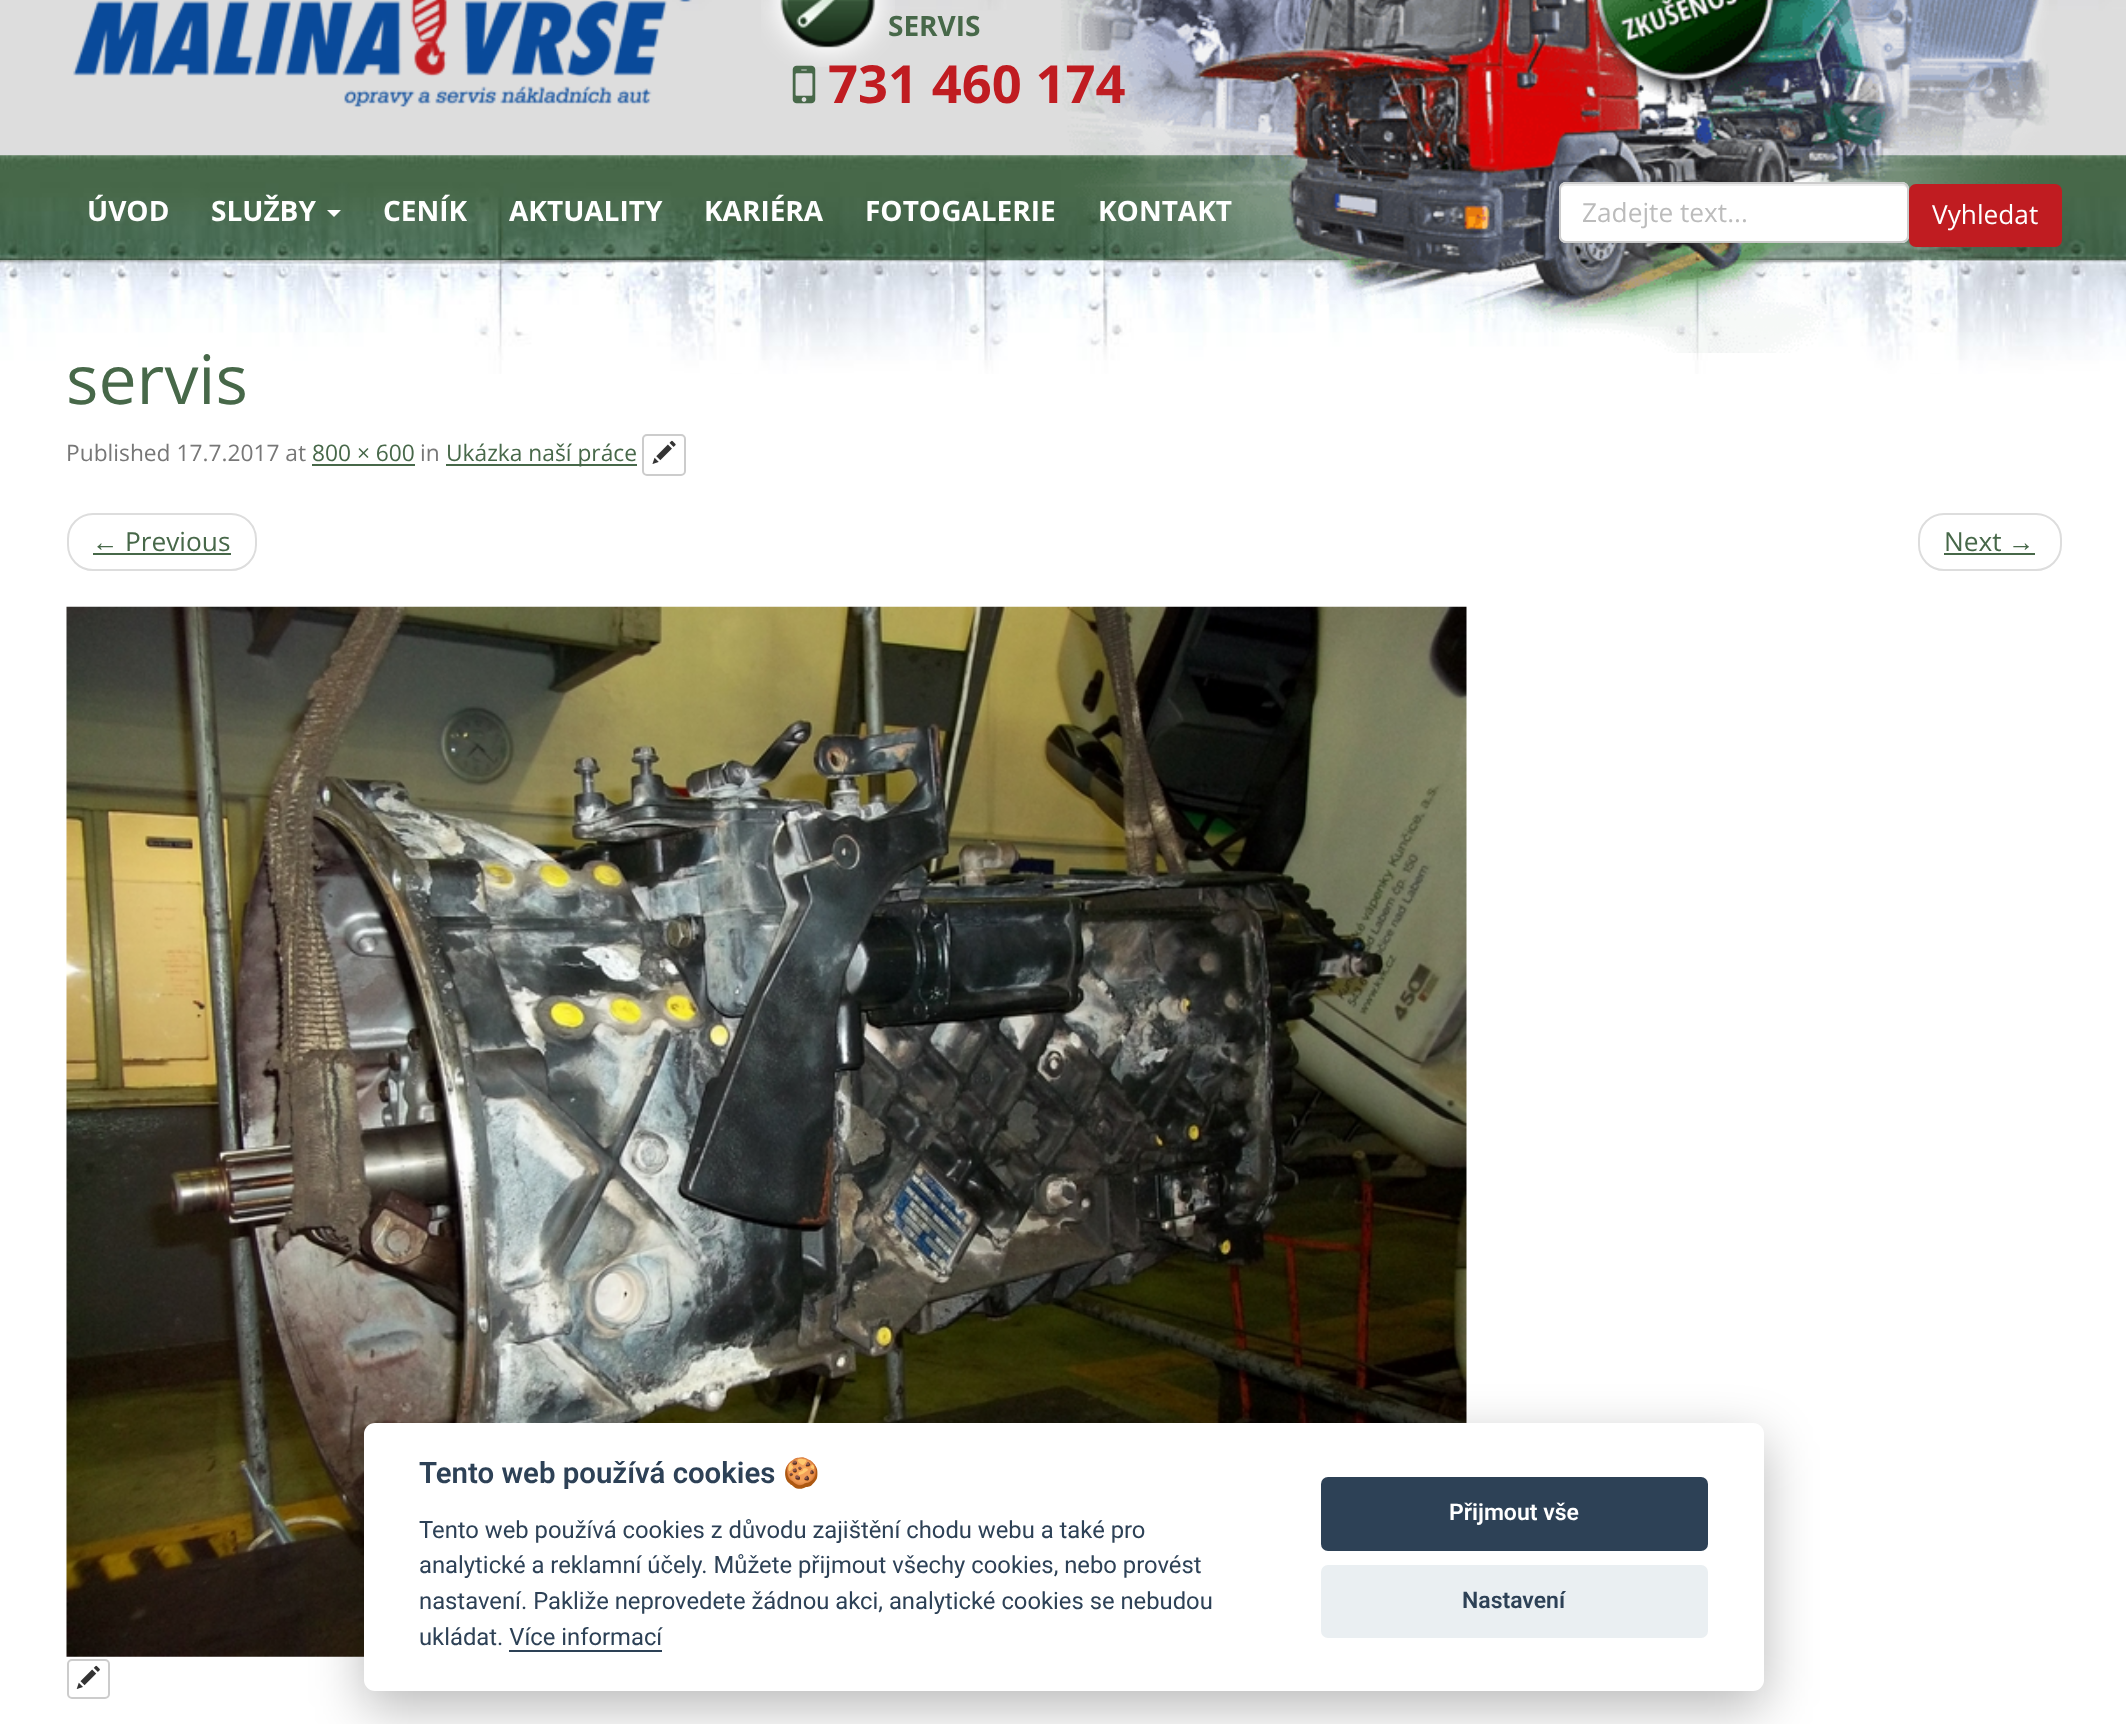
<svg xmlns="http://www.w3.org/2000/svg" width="2126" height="1724">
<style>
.a{font:bold 28px Open Sans;fill:#476849}
.b{font:bold 52.5px Open Sans;fill:#c01c21}
.c{font:bold 28px Open Sans;fill:#fff}
.d{font:26.25px Open Sans;fill:#bcbcbc}
.e{font:26.25px Open Sans;fill:#fff}
.f{font:68px Open Sans;fill:#476849}
.g{font:22.75px Open Sans;fill:#777}
.h{font:22.75px Open Sans;fill:#476849}
.i{font:26.25px Liberation Sans;fill:#476849}
.j{font:26.25px Open Sans;fill:#476849}
.k{font:600 29.4px Roboto;fill:#2d4156}
.l{font:bold 29.4px Noto Color Emoji;fill:#2d4156}
.m{font:23.8px Roboto;fill:#2d4156}
.n{font:600 23px Roboto;fill:#fff}
.o{font:600 23px Roboto;fill:#2d4156}
</style>
<rect width="100%" height="100%" fill="#fff"/>
<image href="1.png" x="0" y="0" width="2126" height="374"/>
<image href="2.png" x="73" y="0" width="619" height="107"/>
<image href="3.png" x="761" y="0" width="134" height="67"/>
<image href="4.png" x="792" y="65" width="24" height="39"/>
<image href="6.png" x="0" y="155" width="2126" height="106"/>
<image href="5.png" x="1061" y="0" width="988" height="353"/>
<path fill="#fff" d="M327 210h14l-7 7z"/>
<rect fill="#fff" x="1559" y="182" width="350" height="61" rx="7"/>
<path fill="#ececec" d="M1566 186h336c3 0 6 2 6 5c0-3-1-7-5-7h-337c-4 0-5 4-5 7c0-3 2-5 5-5z"/>
<rect fill="none" stroke="#ccc" stroke-width="2" x="1560" y="183" width="348" height="59" rx="6"/>
<rect fill="#c01c21" stroke="#c01c21" stroke-width="2" x="1910" y="185" width="151" height="61" rx="6"/>
<path fill="#476849" d="M312 464h103v2H312z"/>
<path fill="#476849" d="M446 464h191v2H446z"/>
<rect fill="none" stroke="#ccc" stroke-width="2" x="643" y="435" width="42" height="40" rx="4"/>
<image href="7.png" x="652" y="440" width="24" height="24"/>
<rect fill="none" stroke="#ddd" stroke-width="2" x="68" y="514" width="188" height="56" rx="25"/>
<path fill="#476849" d="M93 553h138v2H93z"/>
<rect fill="none" stroke="#ddd" stroke-width="2" x="1919" y="514" width="142" height="56" rx="25"/>
<path fill="#476849" d="M1944 553h91v2H1944z"/>
<image href="8.png" x="66" y="606" width="1401" height="1051"/>
<rect fill="none" stroke="#ccc" stroke-width="2" x="68" y="1660" width="41" height="38" rx="4"/>
<image href="9.png" x="76" y="1665" width="24" height="24"/>
<rect fill="#02020347" filter="blur(26px)" x="364" y="1440" width="1400" height="268" rx="11"/>
<rect fill="#fff" x="364" y="1423" width="1400" height="268" rx="11"/>
<path fill="#2d4156" d="M509 1650h153v2H509z"/>
<rect fill="#2d4156" x="1321" y="1477" width="387" height="74" rx="7"/>
<rect fill="#eaeff2" x="1321" y="1565" width="387" height="73" rx="7"/>
<text class="a" x="888" y="36">SERVIS</text>
<text class="b" x="828" y="103">731 460 174</text>
<text class="c" x="87" y="221">ÚVOD</text>
<text class="c" x="211" y="221">SLUŽBY</text>
<text class="c" x="383" y="221">CENÍK</text>
<text class="c" x="509" y="221">AKTUALITY</text>
<text class="c" x="704" y="221">KARIÉRA</text>
<text class="c" x="865" y="221">FOTOGALERIE</text>
<text class="c" x="1098" y="221">KONTAKT</text>
<text class="d" x="1582" y="222">Zadejte text...</text>
<text class="e" x="1932" y="224">Vyhledat</text>
<text class="f" x="66" y="404">servis</text>
<text class="g" x="66" y="461">Published 17.7.2017 at</text>
<text class="h" x="312" y="461">800 × 600</text>
<text class="g" x="420" y="461">in</text>
<text class="h" x="446" y="461">Ukázka naší práce</text>
<text class="i" x="92" y="551">←</text>
<text class="j" x="125" y="551">Previous</text>
<text class="j" x="1944" y="551">Next</text>
<text class="i" x="2008" y="551">→</text>
<text class="k" x="419" y="1483">Tento web používá cookies</text>
<text class="l" x="783" y="1483">🍪</text>
<text class="m" x="419" y="1538">Tento web používá cookies z důvodu zajištění chodu webu a také pro</text>
<text class="m" x="419" y="1573">analytické a reklamní účely. Můžete přijmout všechy cookies, nebo provést</text>
<text class="m" x="419" y="1609">nastavení. Pakliže neprovedete žádnou akci, analytické cookies se nebudou</text>
<text class="m" x="419" y="1645">ukládat. Více informací</text>
<text class="n" x="1449" y="1520">Přijmout vše</text>
<text class="o" x="1462" y="1608">Nastavení</text>
</svg>
